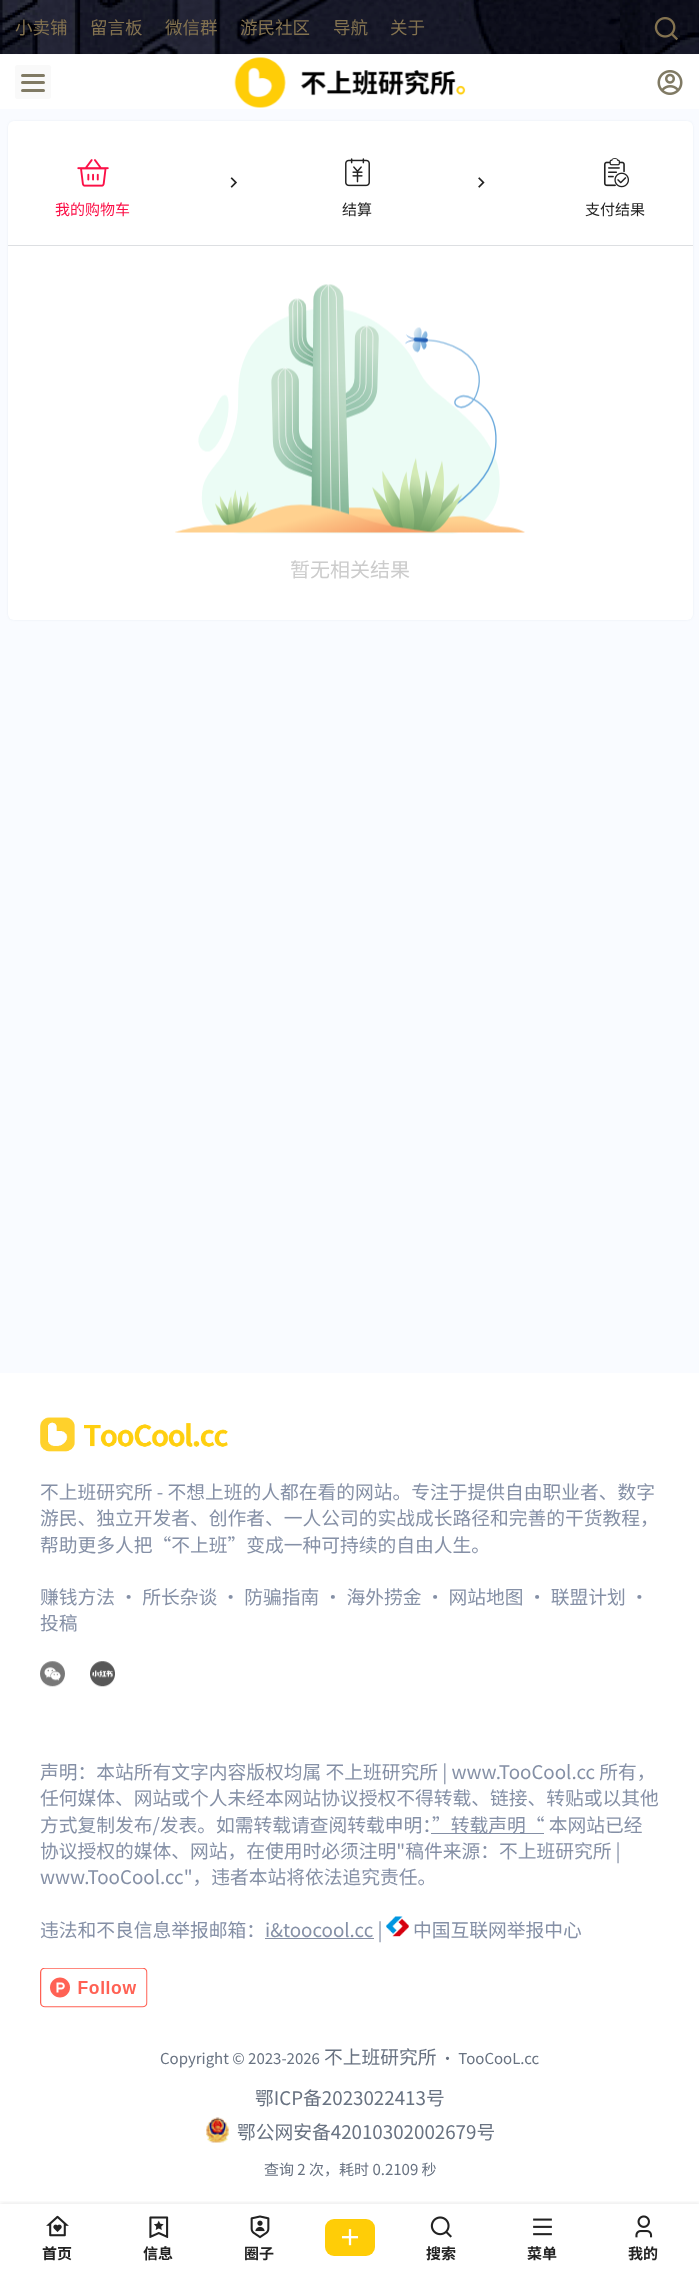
<svg xmlns="http://www.w3.org/2000/svg" width="699" height="2272">
<style>
.a{font:17.5px Noto Sans CJK SC;fill:#847350}
.b{font:15px Noto Sans CJK SC;fill:#fb1047}
.c{font:15px Noto Sans CJK SC;fill:#222}
.d{font:20px Noto Sans CJK SC;fill:#ccc}
.e{font:18.75px Noto Sans CJK SC;fill:#8590a6}
.f{font:15px Noto Sans CJK SC;fill:#687281}
.g{font:18.75px Noto Sans CJK SC;fill:#687281}
.h{font:bold 15px Noto Sans CJK SC;fill:#222}
</style>
<defs>
<clipPath id="clip1"><path d="M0 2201h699v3H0z"/></clipPath>
</defs>
<rect width="100%" height="100%" fill="#f9fbff"/>
<image href="1.png" x="0" y="0" width="699" height="54"/>
<image href="2.png" x="654" y="17" width="24" height="24"/>
<path fill="#fff" d="M0 55h699v54H0z"/>
<path fill="#fcfcfc" d="M0 54h699v1H0z"/>
<rect fill="#f9f9f9" x="15" y="65" width="36" height="34" rx="2.5"/>
<rect fill="#807a64" x="21" y="74" width="24" height="3" rx="1.5"/>
<rect fill="#807a64" x="21" y="81" width="24" height="3" rx="1.5"/>
<rect fill="#807a64" x="21" y="89" width="24" height="3" rx="1.5"/>
<image href="3.png" x="234" y="57" width="232" height="51"/>
<image href="4.png" x="657" y="70" width="26" height="25"/>
<rect fill="#627c991a" filter="blur(1px)" x="8" y="121" width="685" height="499" rx="6"/>
<rect fill="#fff" x="8" y="121" width="685" height="499" rx="6"/>
<image href="5.png" x="230" y="177" width="7" height="11"/>
<image href="6.png" x="478" y="177" width="7" height="11"/>
<image href="7.png" x="77" y="159" width="32" height="28"/>
<image href="8.png" x="345" y="158" width="25" height="29"/>
<image href="9.png" x="603" y="158" width="26" height="30"/>
<path fill="#dddfe2" d="M8 245h685v1H8z"/>
<image href="10.png" x="175" y="284" width="350" height="250"/>
<path fill="#fff" d="M0 1373h699v899H0z"/>
<image href="11.png" x="40" y="1417" width="188" height="35"/>
<image href="12.png" x="40" y="1661" width="25" height="26"/>
<image href="13.png" x="90" y="1661" width="25" height="26"/>
<path fill="#8590a6" d="M431 1833h113v1H431z"/>
<image href="14.png" x="386" y="1916" width="23" height="21"/>
<path fill="#8590a6" d="M265 1938h109v1H265z"/>
<image href="15.png" x="40" y="1968" width="108" height="40"/>
<image href="16.png" x="206" y="2117" width="23" height="26"/>
<g clip-path="url(#clip1)">
<path fill="#1a1a1a1a" filter="blur(2px)" d="M0 2203h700v68H0z"/>
</g>
<image href="17.png" x="46" y="2215" width="23" height="22"/>
<image href="18.png" x="149" y="2216" width="20" height="23"/>
<image href="19.png" x="250" y="2215" width="20" height="24"/>
<rect fill="#ffcd07" x="325" y="2219" width="50" height="37" rx="9"/>
<image href="20.png" x="341" y="2229" width="18" height="17"/>
<image href="21.png" x="430" y="2216" width="22" height="22"/>
<image href="22.png" x="533" y="2218" width="19" height="18"/>
<image href="23.png" x="635" y="2215" width="18" height="23"/>
<text class="a" x="15" y="34">小卖铺</text>
<text class="a" x="90" y="34">留言板</text>
<text class="a" x="165" y="34">微信群</text>
<text class="a" x="240" y="34">游民社区</text>
<text class="a" x="333" y="34">导航</text>
<text class="a" x="390" y="34">关于</text>
<text class="b" x="55" y="215">我的购物车</text>
<text class="c" x="342" y="215">结算</text>
<text class="c" x="585" y="215">支付结果</text>
<text class="d" x="290" y="577">暂无相关结果</text>
<text class="e" x="40" y="1499">不上班研究所 - 不想上班的人都在看的网站。专注于提供自由职业者、数字</text>
<text class="e" x="40" y="1525">游民、独立开发者、创作者、一人公司的实战成长路径和完善的干货教程，</text>
<text class="e" x="40" y="1552">帮助更多人把“不上班”变成一种可持续的自由人生。</text>
<text class="e" x="40" y="1604">赚钱方法 · 所长杂谈 · 防骗指南 · 海外捞金 · 网站地图 · 联盟计划 ·</text>
<text class="e" x="40" y="1630">投稿</text>
<text class="e" x="40" y="1779">声明：本站所有文字内容版权均属 不上班研究所 | www.TooCool.cc 所有，</text>
<text class="e" x="40" y="1805">任何媒体、网站或个人未经本网站协议授权不得转载、链接、转贴或以其他</text>
<text class="e" x="40" y="1832">方式复制发布/发表。如需转载请查阅转载申明：</text>
<text class="e" x="432" y="1832">”转载声明“ 本网站已经</text>
<text class="e" x="40" y="1858">协议授权的媒体、网站，在使用时必须注明"稿件来源：不上班研究所 |</text>
<text class="e" x="40" y="1884">www.TooCool.cc"，违者本站将依法追究责任。</text>
<text class="e" x="40" y="1937">违法和不良信息举报邮箱：i&amp;toocool.cc |</text>
<text class="e" x="413" y="1937">中国互联网举报中心</text>
<text class="f" x="160" y="2064">Copyright © 2023-2026</text>
<text class="g" x="324" y="2064">不上班研究所</text>
<text class="f" x="440" y="2064">· TooCooL.cc</text>
<text class="g" x="255" y="2105">鄂ICP备2023022413号</text>
<text class="g" x="237" y="2139">鄂公网安备42010302002679号</text>
<text class="f" x="264" y="2175">查询 2 次，耗时 0.2109 秒</text>
<text class="h" x="42" y="2259">首页</text>
<text class="h" x="143" y="2259">信息</text>
<text class="h" x="244" y="2259">圈子</text>
<text class="h" x="426" y="2259">搜索</text>
<text class="h" x="527" y="2259">菜单</text>
<text class="h" x="628" y="2259">我的</text>
</svg>
